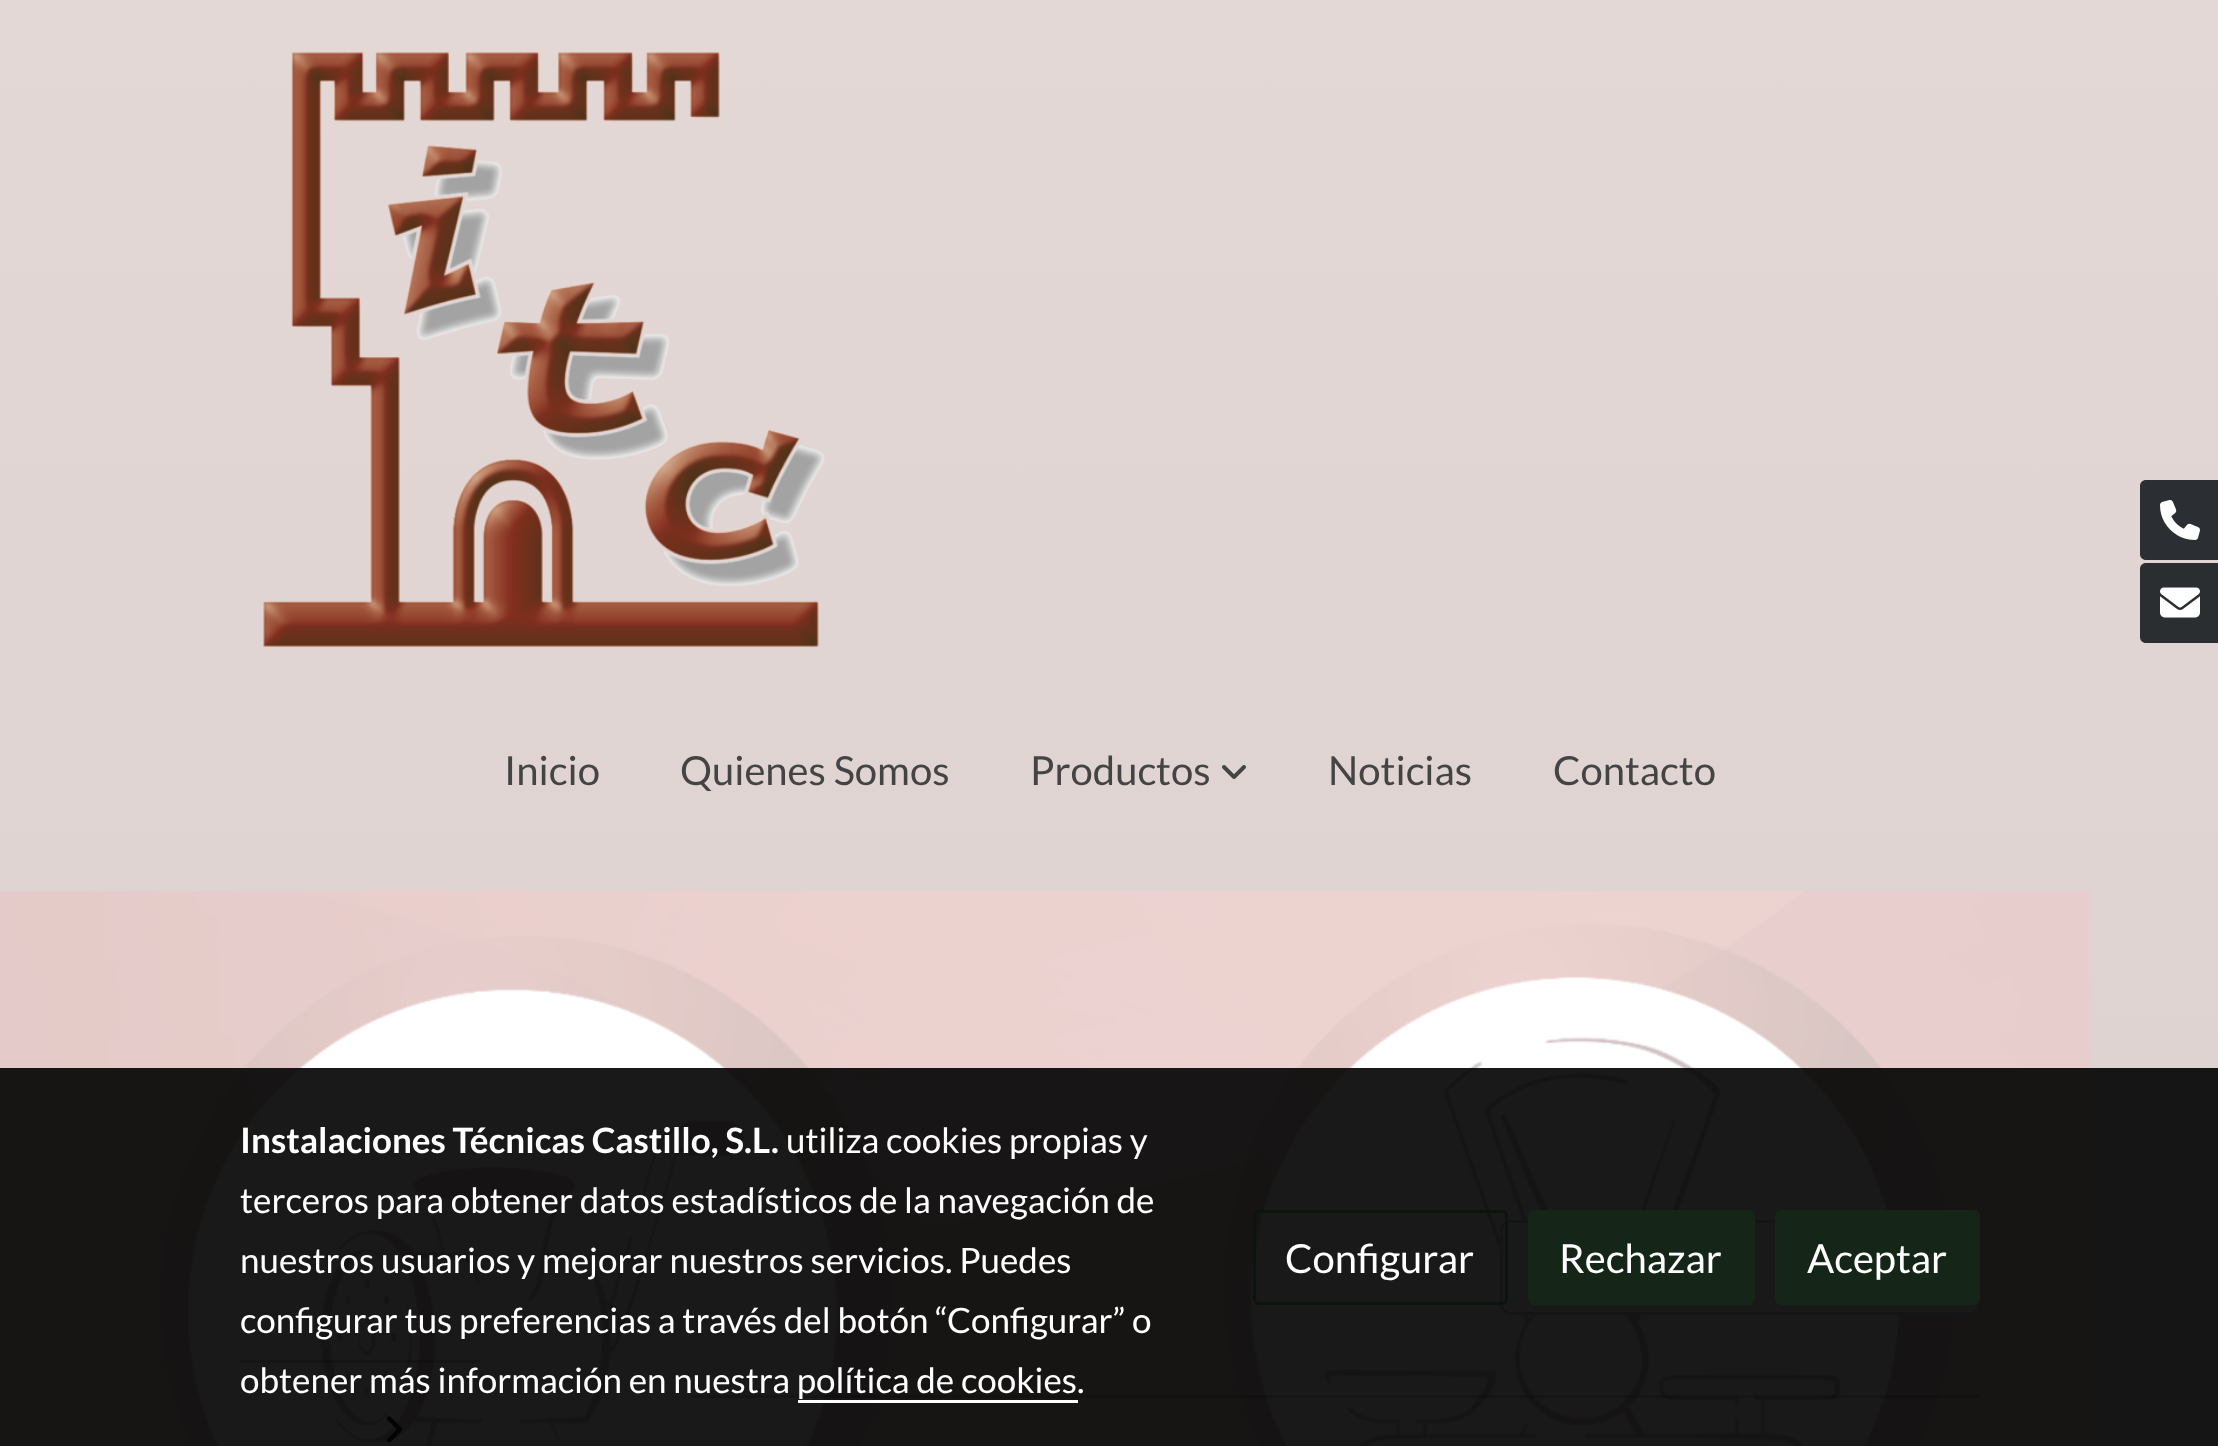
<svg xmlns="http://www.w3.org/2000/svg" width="2218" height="1446">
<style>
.a{font:40px Lato;fill:#444}
.b{font:bold 35px Lato;fill:#fff}
.c{font:35px Lato;fill:#fff}
.d{font:40px Lato;fill:#fff}
</style>
<defs>
<linearGradient id="g1" gradientUnits="userSpaceOnUse" x1="1110" y1="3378" x2="1110" y2="0"><stop offset="0" stop-color="#d3c8c6"/><stop offset="1" stop-color="#e3d8d6"/></linearGradient>
</defs>
<rect width="100%" height="100%" fill="#fff"/>
<path fill="url(#g1)" d="M0 0h2218v1446H0z"/>
<path fill="#2b2e32" d="M2146 480h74v80h-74c-3.5 0-6-2.5-6-6v-68c0-3.5 2.5-6 6-6z"/>
<image href="1.png" x="2160" y="500" width="40" height="40"/>
<path fill="#2b2e31" d="M2146 563h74v80h-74c-3.5 0-6-2.5-6-6v-68c0-3.5 2.5-6 6-6z"/>
<image href="2.png" x="2160" y="587" width="40" height="31"/>
<image href="3.png" x="263" y="52" width="562" height="596"/>
<image href="4.png" x="1222" y="765" width="24" height="14"/>
<image href="5.png" x="0" y="890" width="2091" height="556"/>
<path fill="#44444440" d="M240 1360h240v3H240z"/>
<image href="6.png" x="386" y="1416" width="17" height="27"/>
<rect fill="#fff" stroke="#ced4da" stroke-width="3" x="1501.5" y="1221.5" width="477" height="92" rx="8.5"/>
<path fill="#44444440" d="M690 1395h1290v3H690z"/>
<path fill="#000000e6" d="M0 1068h2218v378H0z"/>
<path fill="#fff" d="M798 1400h280v3H798z"/>
<rect fill="none" stroke="#0c150d" stroke-width="3" x="1254.5" y="1211.5" width="252" height="92" rx="4.5"/>
<rect fill="#152517" stroke="#152517" stroke-width="3" x="1529.5" y="1211.5" width="224" height="92" rx="4.5"/>
<rect fill="#152517" stroke="#152517" stroke-width="3" x="1776.5" y="1211.5" width="202" height="92" rx="4.5"/>
<text class="a" x="504" y="785">Inicio</text>
<text class="a" x="680" y="785">Quienes Somos</text>
<text class="a" x="1030" y="785">Productos</text>
<text class="a" x="1328" y="785">Noticias</text>
<text class="a" x="1553" y="785">Contacto</text>
<text class="b" x="240" y="1153">Instalaciones Técnicas Castillo, S.L.</text>
<text class="c" x="786" y="1153">utiliza cookies propias y</text>
<text class="c" x="240" y="1213">terceros para obtener datos estadísticos de la navegación de</text>
<text class="c" x="240" y="1273">nuestros usuarios y mejorar nuestros servicios. Puedes</text>
<text class="c" x="240" y="1333">configurar tus preferencias a través del botón “Configurar” o</text>
<text class="c" x="240" y="1393">obtener más información en nuestra política de cookies.</text>
<text class="d" x="1285" y="1273">Configurar</text>
<text class="d" x="1559" y="1273">Rechazar</text>
<text class="d" x="1807" y="1273">Aceptar</text>
</svg>
